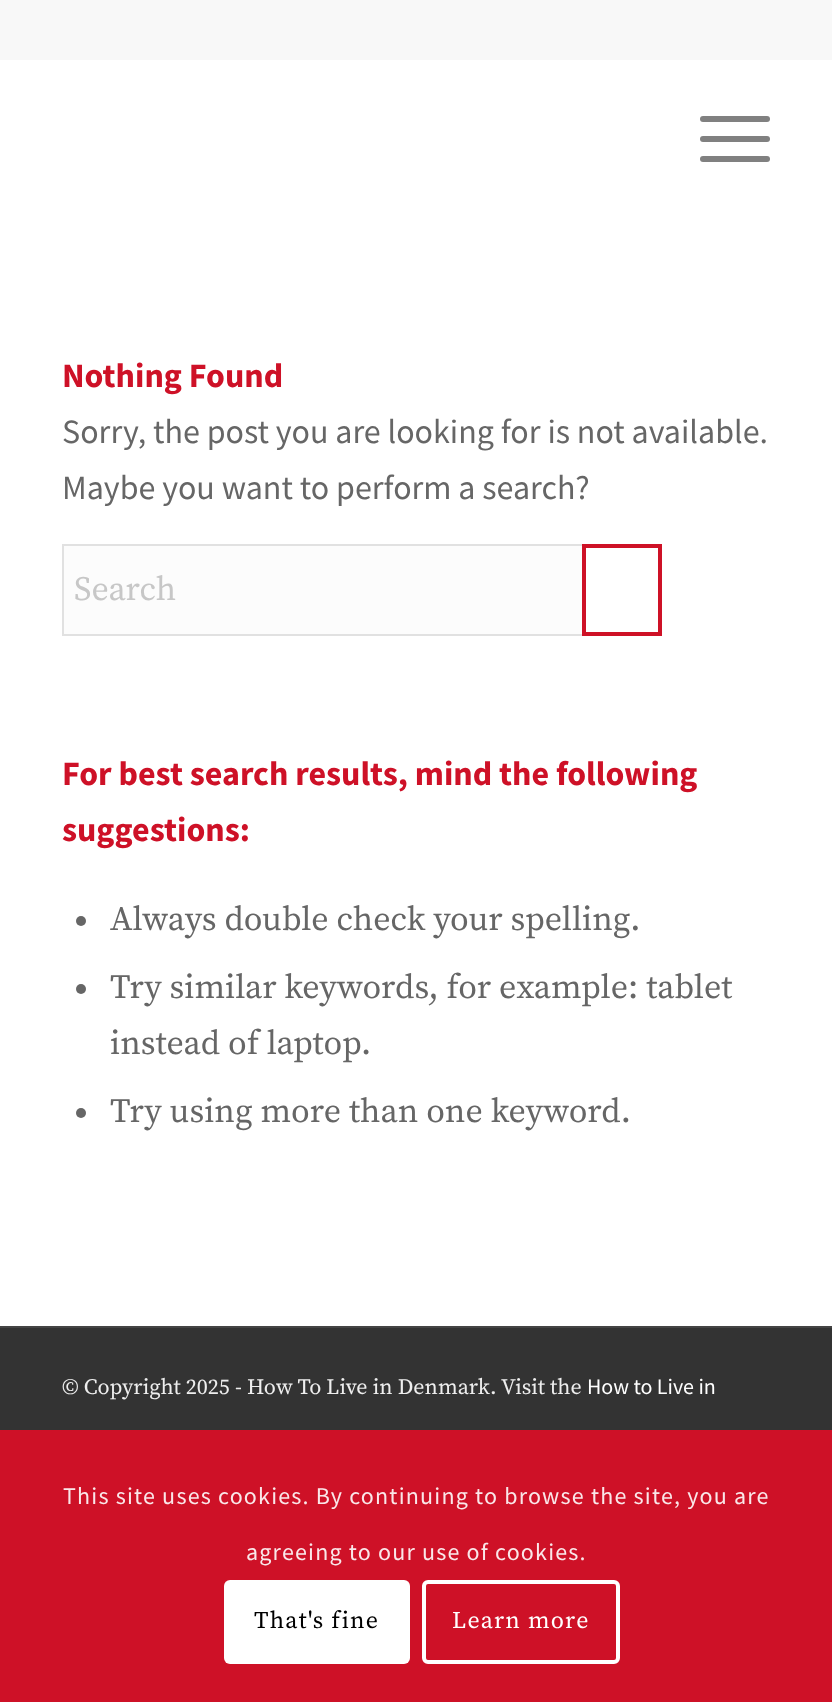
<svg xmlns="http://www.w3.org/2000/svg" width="832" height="1702">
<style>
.a{font:bold 34px Source Sans Pro;fill:#ce1127}
.b{font:34px Source Sans Pro;fill:#666}
.c{font:34px Source Serif Pro;fill:#c7c7c7}
.d{font:34px Source Serif Pro;fill:#666}
.e{font:22px Source Serif Pro;fill:#eee}
.f{font:22px Source Sans Pro;fill:#fff}
.g{font:24px Source Sans Pro;letter-spacing:1.2px;fill:#fae7e9}
.h{font:24px Source Serif Pro;letter-spacing:1.2px;fill:#000}
.i{font:24px Source Serif Pro;letter-spacing:1.2px;fill:#fff}
</style>
<rect width="100%" height="100%" fill="#fff"/>
<path fill="#f8f8f8" d="M0 0h832v60H0z"/>
<rect fill="#808080" x="700" y="136" width="70" height="6" rx="3"/>
<rect fill="#808080" x="700" y="116" width="70" height="6" rx="3"/>
<rect fill="#808080" x="700" y="156" width="70" height="6" rx="3"/>
<path fill="#fcfcfc" d="M64 546h518v88H64z"/>
<path fill="none" stroke="#e1e1e1" stroke-width="2" d="M63 545h598v90H63z"/>
<path fill="none" stroke="#ce1126" stroke-width="4" d="M584 546h76v88H584z"/>
<circle fill="#666" cx="81" cy="921" r="5"/>
<circle fill="#666" cx="81" cy="989" r="5"/>
<circle fill="#666" cx="81" cy="1113" r="5"/>
<path fill="#333" d="M0 1328h832v102H0z"/>
<path fill="#444" d="M0 1326h832v2H0z"/>
<path fill="#ce1127" d="M0 1430h832v272H0z"/>
<rect fill="#fff" x="224" y="1580" width="186" height="84" rx="6"/>
<rect fill="none" stroke="#fff" stroke-width="4" x="424" y="1582" width="194" height="80" rx="4"/>
<text class="a" x="62" y="387">Nothing Found</text>
<text class="b" x="62" y="443">Sorry, the post you are looking for is not available.</text>
<text class="b" x="62" y="499">Maybe you want to perform a search?</text>
<text class="c" x="74" y="600">Search</text>
<text class="a" x="62" y="785">For best search results, mind the following</text>
<text class="a" x="62" y="841">suggestions:</text>
<text class="d" x="110" y="930">Always double check your spelling.</text>
<text class="d" x="110" y="998">Try similar keywords, for example: tablet</text>
<text class="d" x="110" y="1054">instead of laptop.</text>
<text class="d" x="110" y="1122">Try using more than one keyword.</text>
<text class="e" x="62" y="1394">© Copyright 2025 - How To Live in Denmark. Visit the</text>
<text class="f" x="587" y="1394">How to Live in</text>
<text class="g" x="63" y="1504">This site uses cookies. By continuing to browse the site, you are</text>
<text class="g" x="246" y="1560">agreeing to our use of cookies.</text>
<text class="h" x="254" y="1628">That's fine</text>
<text class="i" x="452" y="1628">Learn more</text>
</svg>
